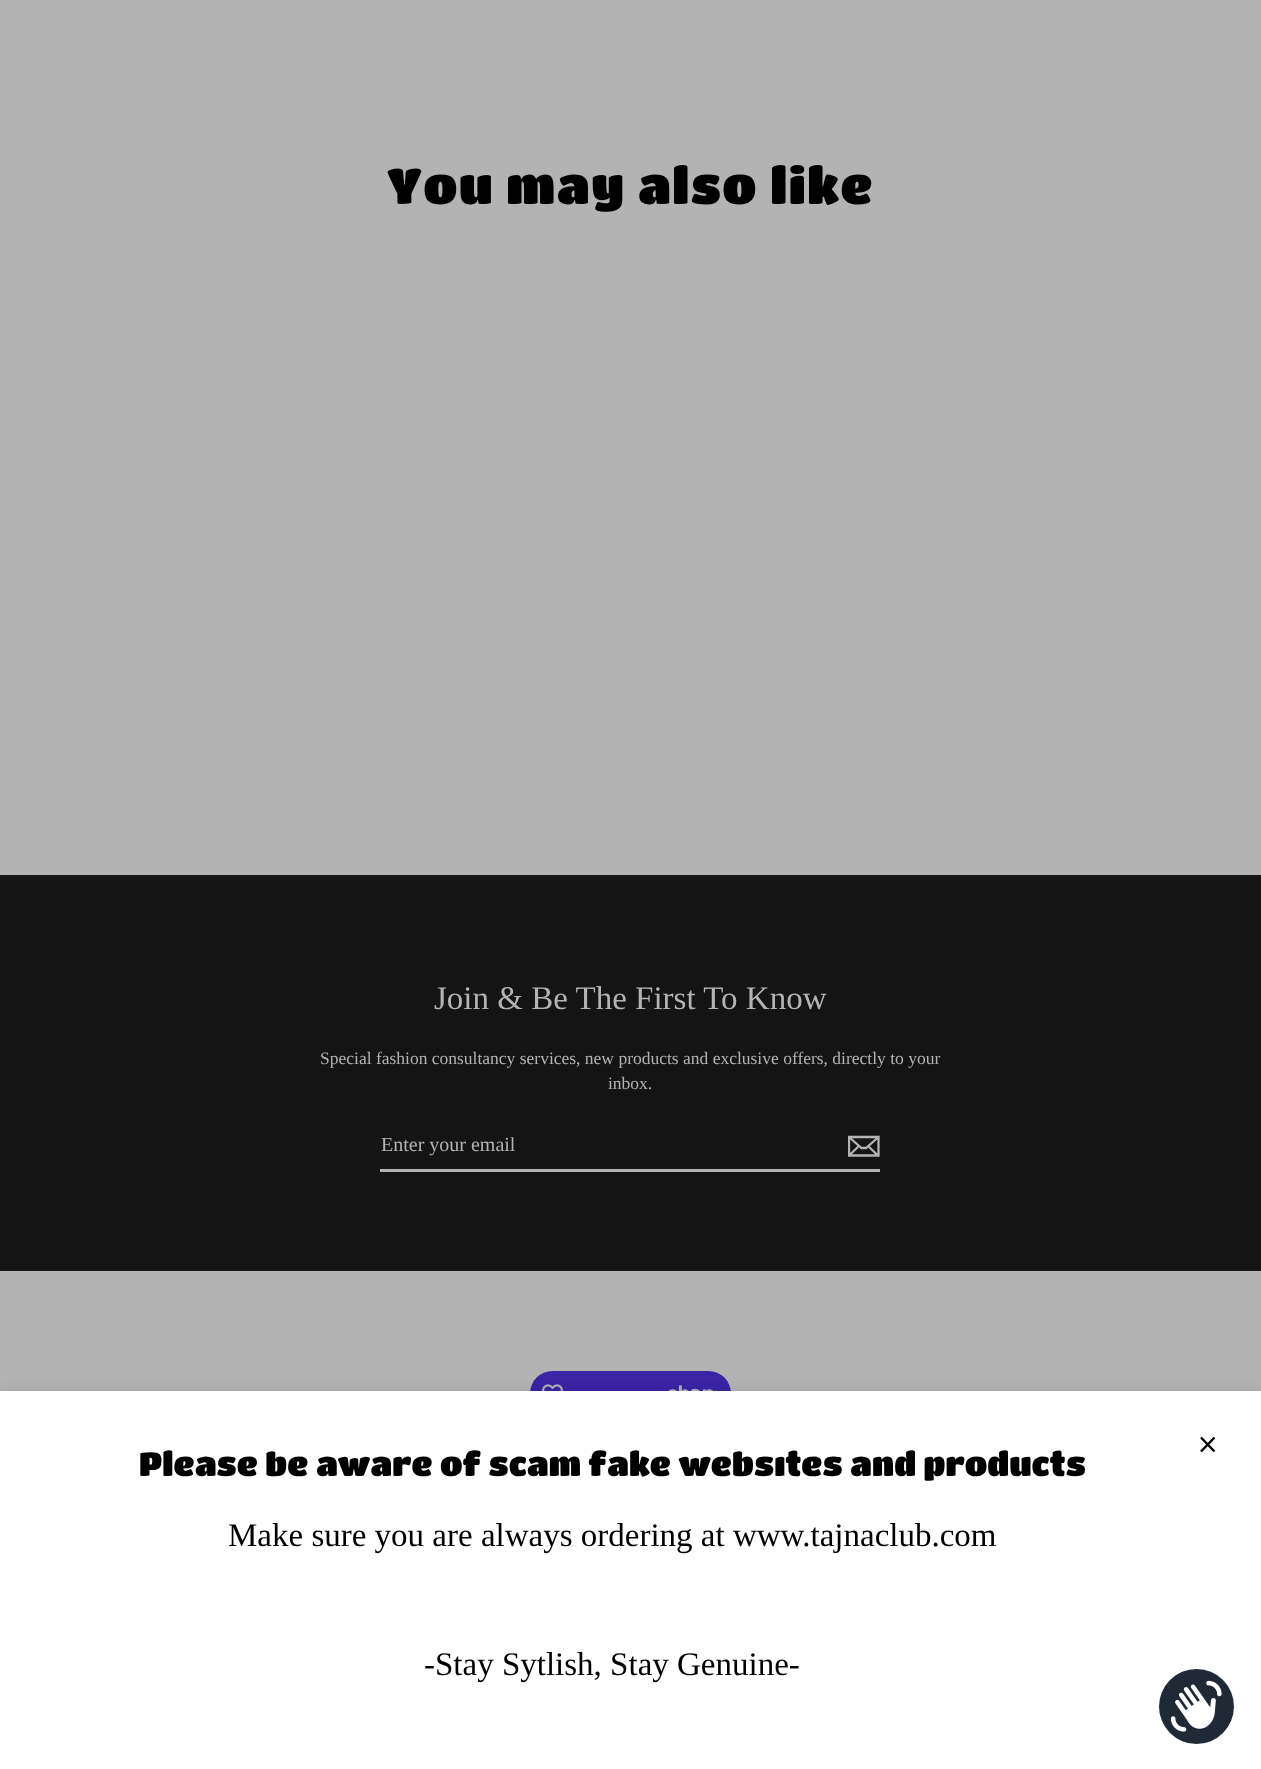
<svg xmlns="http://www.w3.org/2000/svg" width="1261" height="1769">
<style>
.a{font:50px Titan One;letter-spacing:1.25px;fill:#000}
.b{font:33px Liberation Serif;fill:#b3b3b3}
.c{font:17.5px Liberation Serif;fill:#b3b3b3}
.d{font:20px Liberation Serif;fill:#b3b3b3}
.e{font:33px Titan One;fill:#000}
.f{font:33px Liberation Serif;fill:#000}
</style>
<defs>
<clipPath id="clip1"><path d="M848 1131h32v30H848z"/></clipPath>
</defs>
<rect width="100%" height="100%" fill="#b3b3b3"/>
<path fill="#141414" d="M0 875h1261v396H0z"/>
<path fill="#b3b3b3" d="M380 1169h500v3H380z"/>
<g clip-path="url(#clip1)">
<path fill="none" stroke="#b3b3b3" stroke-width="2.3" d="M878.5 1155.5h-29.5v-18.5h29.5zm-29.5-18.5l12.5 11h4.5l12.5-11m-19.5 9l-9.5 9m28.5 .5l-10-9.5"/>
</g>
<rect fill="#3b24a5" x="530" y="1371" width="201" height="45" rx="22.5"/>
<image href="1.png" x="542" y="1384" width="21" height="7"/>
<image href="2.png" x="668" y="1385" width="46" height="6"/>
<path fill="#0000001a" filter="blur(6px)" d="M0 1391h1261v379H0z"/>
<path fill="#fff" d="M0 1391h1261v378H0z"/>
<path fill="none" stroke="#000" stroke-width="2.5" d="M1201 1437.5l13.5 14m0-14l-13.5 14"/>
<circle fill="#202a36" cx="1196.5" cy="1706.5" r="37.5"/>
<image href="3.png" x="1170" y="1680" width="52" height="52"/>
<text class="a" x="387" y="204">You may also like</text>
<text class="b" x="434" y="1009">Join &amp; Be The First To Know</text>
<text class="c" x="320" y="1064">Special fashion consultancy services, new products and exclusive offers, directly to your</text>
<text class="c" x="608" y="1089">inbox.</text>
<text class="d" x="381" y="1151">Enter your email</text>
<text class="e" x="139" y="1476">Please be aware of scam fake websıtes and products</text>
<text class="f" x="228" y="1546">Make sure you are always ordering at www.tajnaclub.com</text>
<text class="f" x="424" y="1675">-Stay Sytlish, Stay Genuine-</text>
</svg>
